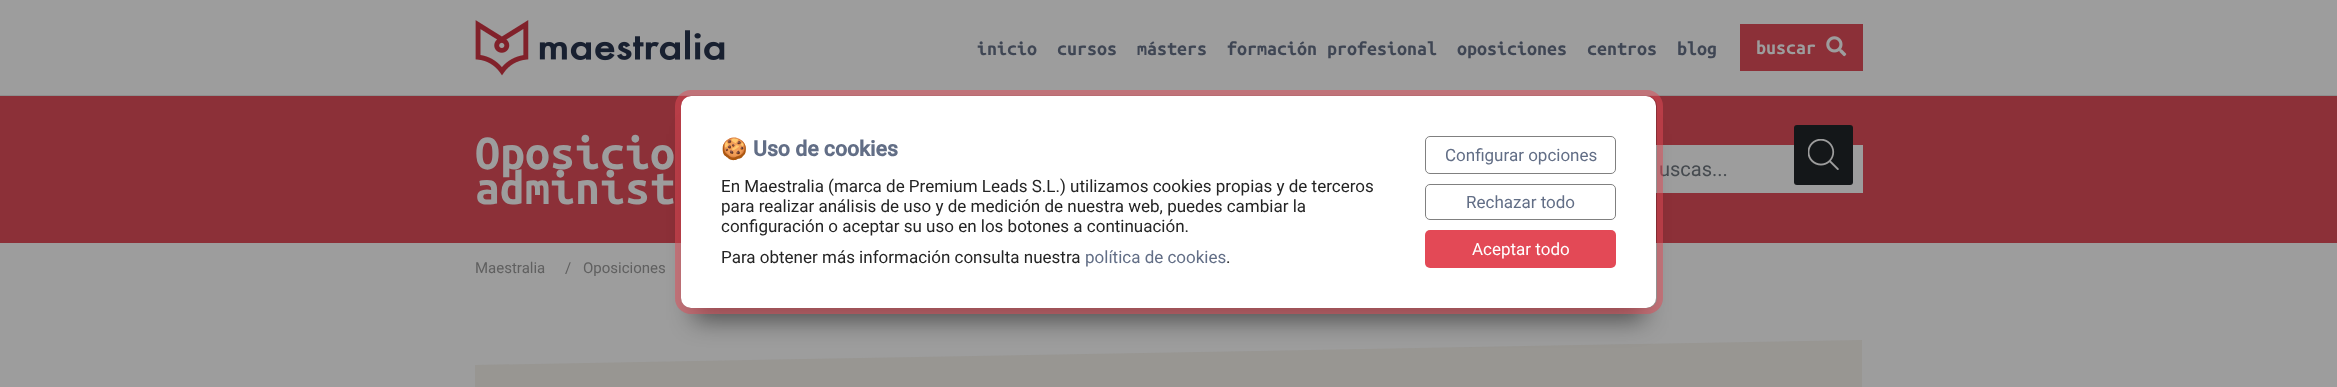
<svg xmlns="http://www.w3.org/2000/svg" width="2337" height="387">
<style>
.a{font:bold 20px Ubuntu Mono;fill:#3f4654}
.b{font:bold 20px Ubuntu Mono;fill:#9d9d9d}
.c{font:bold 50px Ubuntu Mono;fill:#9d9d9d}
.d{font:20px Roboto;fill:#454a4f}
.e{font:15px Roboto;fill:#606060}
.f{font:bold 21.25px Noto Color Emoji;fill:#626e86}
.g{font:bold 21.25px Roboto;fill:#626e86}
.h{font:17px Roboto;fill:#242424}
.i{font:17px Roboto;fill:#626e86}
.j{font:17px Roboto;fill:#fff}
</style>
<rect width="100%" height="100%" fill="#9d9d9d"/>
<path fill="#8e8e8e" d="M0 95h2337v1H0z"/>
<image href="1.png" x="475" y="20" width="250" height="56"/>
<path fill="#8c3038" d="M1740 24h123v47H1740z"/>
<image href="2.png" x="1826" y="36" width="21" height="21"/>
<path fill="#8c3038" d="M0 96h2337v147H0z"/>
<path fill="#9d9d9d" d="M1656 145h207v48H1656z"/>
<rect fill="#141719" x="1794" y="125" width="59" height="60" rx="3"/>
<image href="3.png" x="1808" y="139" width="31" height="31"/>
<path fill="#989692" d="M475 365l1387-25v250l-1387 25z"/>
<path fill="#00000080" filter="blur(12.5px)" d="M694 134h950v186H694z"/>
<rect fill="#fff" x="681" y="96" width="975" height="212" rx="10"/>
<rect fill="none" stroke="#808080" x="1425.5" y="136.5" width="190" height="37" rx="4.5"/>
<rect fill="none" stroke="#808080" x="1425.5" y="184.5" width="190" height="35" rx="4.5"/>
<rect fill="#e34956" x="1425" y="230" width="191" height="38" rx="5"/>
<text class="a" x="977" y="55">inicio</text>
<text class="a" x="1057" y="55">cursos</text>
<text class="a" x="1137" y="55">másters</text>
<text class="a" x="1227" y="55">formación profesional</text>
<text class="a" x="1457" y="55">oposiciones</text>
<text class="a" x="1587" y="55">centros</text>
<text class="a" x="1677" y="55">blog</text>
<text class="b" x="1756" y="54">buscar</text>
<text class="c" x="475" y="169">Oposicio</text>
<text class="c" x="475" y="204">administ</text>
<text class="d" x="1659" y="176">uscas...</text>
<text class="e" x="475" y="273">Maestralia</text>
<text class="e" x="565" y="273">/</text>
<text class="e" x="583" y="273">Oposiciones</text>
<rect fill="none" stroke="#e3495680" stroke-width="6" x="678" y="93" width="982" height="218" rx="13"/>
<text class="f" x="721" y="156">🍪</text>
<text class="g" x="753" y="156">Uso de cookies</text>
<text class="h" x="721" y="192">En Maestralia (marca de Premium Leads S.L.) utilizamos cookies propias y de terceros</text>
<text class="h" x="721" y="212">para realizar análisis de uso y de medición de nuestra web, puedes cambiar la</text>
<text class="h" x="721" y="232">configuración o aceptar su uso en los botones a continuación.</text>
<text class="h" x="721" y="263">Para obtener más información consulta nuestra</text>
<text class="i" x="1085" y="263">política de cookies</text>
<text class="h" x="1226" y="263">.</text>
<text class="i" x="1445" y="161">Configurar opciones</text>
<text class="i" x="1466" y="208">Rechazar todo</text>
<text class="j" x="1472" y="255">Aceptar todo</text>
</svg>
